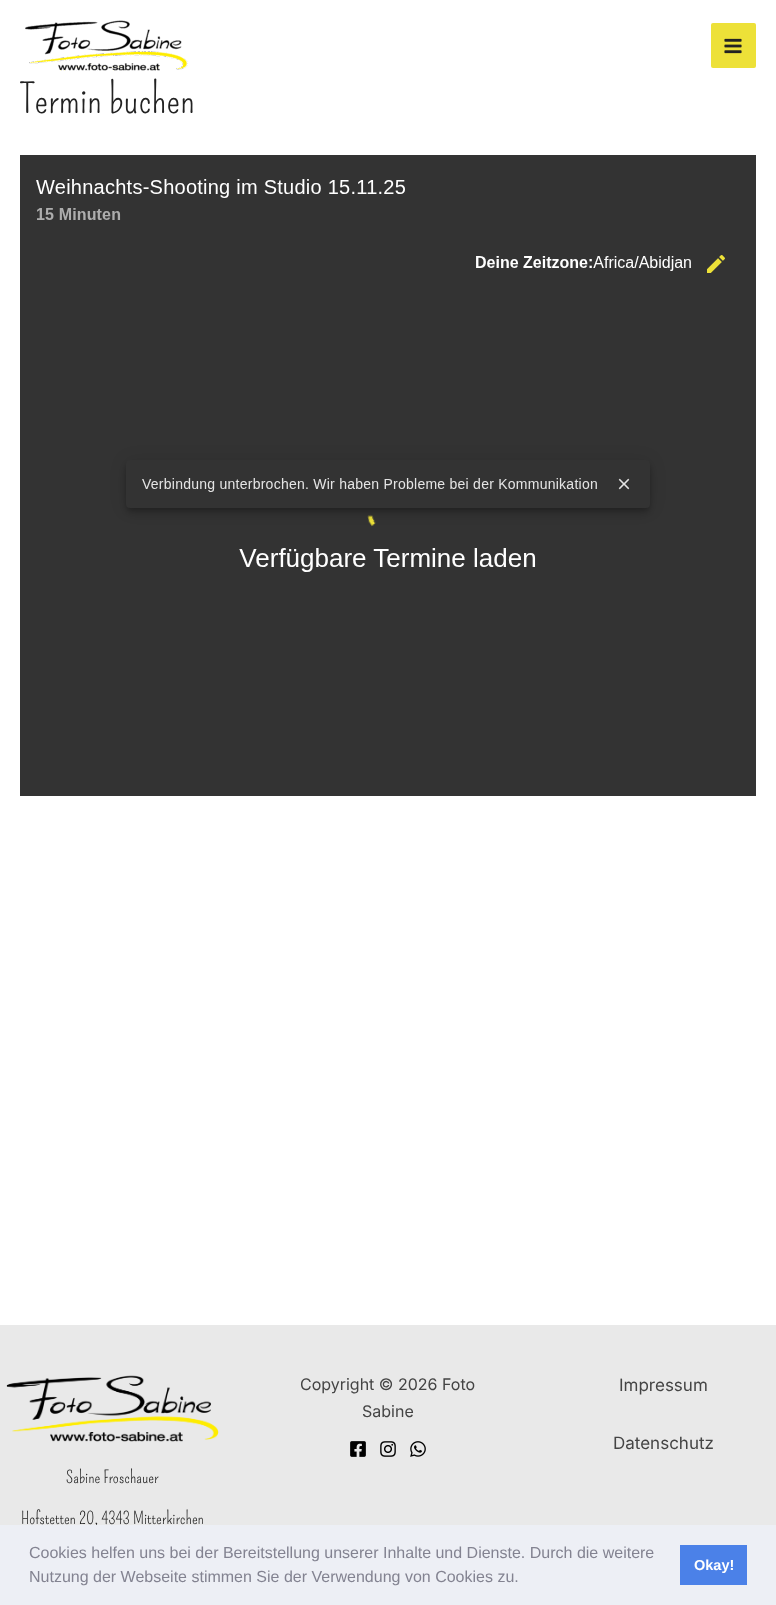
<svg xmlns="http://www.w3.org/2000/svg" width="776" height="1605">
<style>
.a{font:40px Pompiere;fill:#222}
.b{font:16px Inter;fill:#444}
.c{font:17px Inter;fill:#444}
.d{font:17px Pompiere;fill:#222}
.e{font:16px Liberation Sans;fill:#838391}
.f{font:bold 14.5px Liberation Sans;fill:#fff}
</style>
<rect width="100%" height="100%" fill="#fff"/>
<image href="1.png" x="25" y="20" width="163" height="51"/>
<rect fill="#ede138" x="711" y="23" width="45" height="45" rx="2"/>
<image href="2.png" x="724" y="38" width="18" height="16"/>
<image href="3.png" x="20" y="155" width="736" height="641"/>
<path fill="#e9e9e9" d="M0 1325h776v200H0z"/>
<image href="4.png" x="350" y="1441" width="16" height="16"/>
<image href="5.png" x="380" y="1441" width="16" height="16"/>
<image href="6.png" x="410" y="1441" width="16" height="16"/>
<image href="7.png" x="6" y="1375" width="213" height="67"/>
<text class="a" x="20" y="113">Termin buchen</text>
<text class="b" x="300" y="1390">Copyright © 2026 Foto</text>
<text class="b" x="362" y="1417">Sabine</text>
<text class="c" x="619" y="1391">Impressum</text>
<text class="c" x="613" y="1449">Datenschutz</text>
<text class="d" x="66" y="1483">Sabine Froschauer</text>
<text class="d" x="21" y="1524">Hofstetten 20, 4343 Mitterkirchen</text>
<path fill="#edeff5" d="M0 1525h776v80H0z"/>
<text class="e" x="29" y="1558">Cookies helfen uns bei der Bereitstellung unserer Inhalte und Dienste. Durch die weitere</text>
<text class="e" x="29" y="1582">Nutzung der Webseite stimmen Sie der Verwendung von Cookies zu.</text>
<path fill="#4b81e8" d="M680 1545h67v40H680z"/>
<text class="f" x="694" y="1570">Okay!</text>
</svg>
